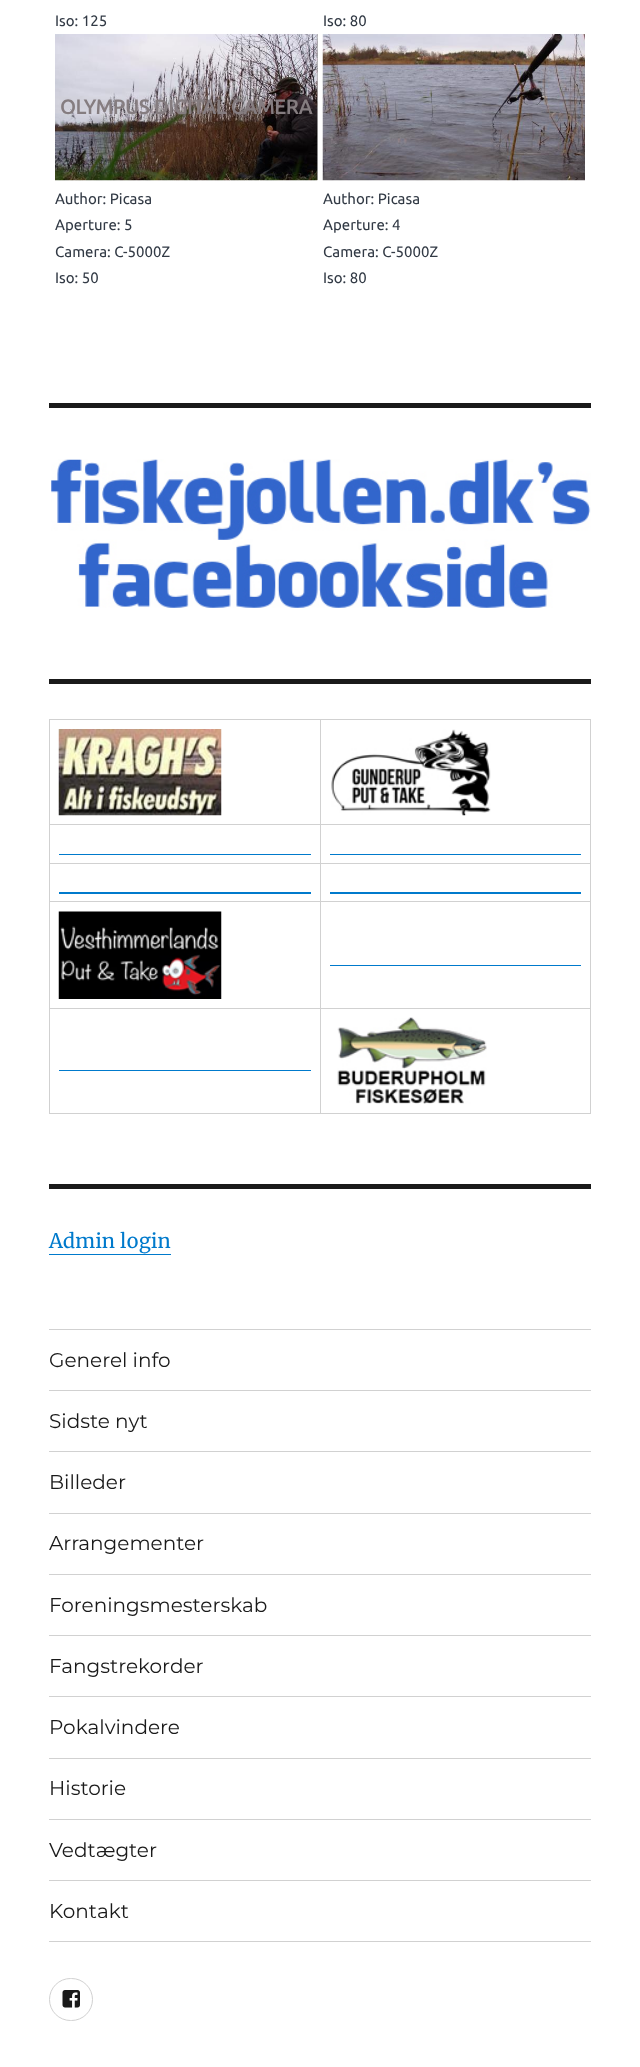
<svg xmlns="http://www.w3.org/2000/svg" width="640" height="2067">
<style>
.a{font:15px Ubuntu;fill:#323a45}
.b{font:bold 20px Ubuntu;fill:#857d80}
.c{font:20px Merriweather;fill:#007acc}
.d{font:100 20px Montserrat;fill:#1a1a1a}
</style>
<rect width="100%" height="100%" fill="#fff"/>
<path fill="#b3b3b3" d="M317 34h1v146H317z"/>
<image href="1.png" x="55" y="34" width="263" height="147"/>
<image href="2.png" x="322" y="34" width="263" height="147"/>
<path fill="#1a1a1a" d="M49 403h542v5H49z"/>
<image href="3.png" x="51" y="459" width="540" height="149"/>
<path fill="#1a1a1a" d="M49 679h542v5H49z"/>
<path fill="#d1d1d1" d="M49 719h542v1H49z"/>
<path fill="#d1d1d1" d="M49 719h1v395H49z"/>
<path fill="#d1d1d1" d="M320 720h1v394H320z"/>
<path fill="#d1d1d1" d="M50 824h271v1H50z"/>
<image href="4.png" x="58" y="729" width="164" height="87"/>
<path fill="#d1d1d1" d="M590 720h1v394H590z"/>
<path fill="#d1d1d1" d="M321 824h270v1H321z"/>
<image href="5.png" x="331" y="729" width="160" height="87"/>
<path fill="#d1d1d1" d="M50 863h541v1H50z"/>
<path fill="#007acc" d="M59 854h252v1H59z"/>
<path fill="#007acc" d="M330 854h251v1H330z"/>
<path fill="#d1d1d1" d="M50 901h541v1H50z"/>
<path fill="#007acc" d="M59 892h252v2H59z"/>
<path fill="#007acc" d="M330 892h251v2H330z"/>
<path fill="#d1d1d1" d="M50 1008h541v1H50z"/>
<image href="6.png" x="58" y="911" width="164" height="88"/>
<path fill="#007acc" d="M330 965h251v1H330z"/>
<image href="7.png" x="337" y="1017" width="150" height="87"/>
<path fill="#d1d1d1" d="M50 1113h541v1H50z"/>
<path fill="#007acc" d="M59 1070h252v1H59z"/>
<path fill="#1a1a1a" d="M49 1184h542v5H49z"/>
<path fill="#007acc" d="M49 1254h122v1H49z"/>
<path fill="#d1d1d1" d="M49 1941h542v1H49z"/>
<path fill="#d1d1d1" d="M49 1329h542v1H49z"/>
<path fill="#d1d1d1" d="M49 1390h542v1H49z"/>
<path fill="#d1d1d1" d="M49 1451h542v1H49z"/>
<path fill="#d1d1d1" d="M49 1513h542v1H49z"/>
<path fill="#d1d1d1" d="M49 1574h542v1H49z"/>
<path fill="#d1d1d1" d="M49 1635h542v1H49z"/>
<path fill="#d1d1d1" d="M49 1696h542v1H49z"/>
<path fill="#d1d1d1" d="M49 1758h542v1H49z"/>
<path fill="#d1d1d1" d="M49 1819h542v1H49z"/>
<path fill="#d1d1d1" d="M49 1880h542v1H49z"/>
<rect fill="none" stroke="#d1d1d1" x="49.5" y="1978.5" width="43" height="42" rx="21"/>
<image href="8.png" x="62" y="1990" width="18" height="18"/>
<text class="a" x="55" y="26">Iso: 125</text>
<text class="a" x="323" y="26">Iso: 80</text>
<text class="b" x="60" y="114">OLYMPUS DIGITAL CAMERA</text>
<text class="a" x="55" y="204">Author: Picasa</text>
<text class="a" x="55" y="230">Aperture: 5</text>
<text class="a" x="55" y="257">Camera: C-5000Z</text>
<text class="a" x="55" y="283">Iso: 50</text>
<text class="a" x="323" y="204">Author: Picasa</text>
<text class="a" x="323" y="230">Aperture: 4</text>
<text class="a" x="323" y="257">Camera: C-5000Z</text>
<text class="a" x="323" y="283">Iso: 80</text>
<text class="c" x="49" y="1248">Admin login</text>
<text class="d" x="49" y="1367">Generel info</text>
<text class="d" x="49" y="1428">Sidste nyt</text>
<text class="d" x="49" y="1489">Billeder</text>
<text class="d" x="49" y="1550">Arrangementer</text>
<text class="d" x="49" y="1612">Foreningsmesterskab</text>
<text class="d" x="49" y="1673">Fangstrekorder</text>
<text class="d" x="49" y="1734">Pokalvindere</text>
<text class="d" x="49" y="1795">Historie</text>
<text class="d" x="49" y="1857">Vedtægter</text>
<text class="d" x="49" y="1918">Kontakt</text>
</svg>
